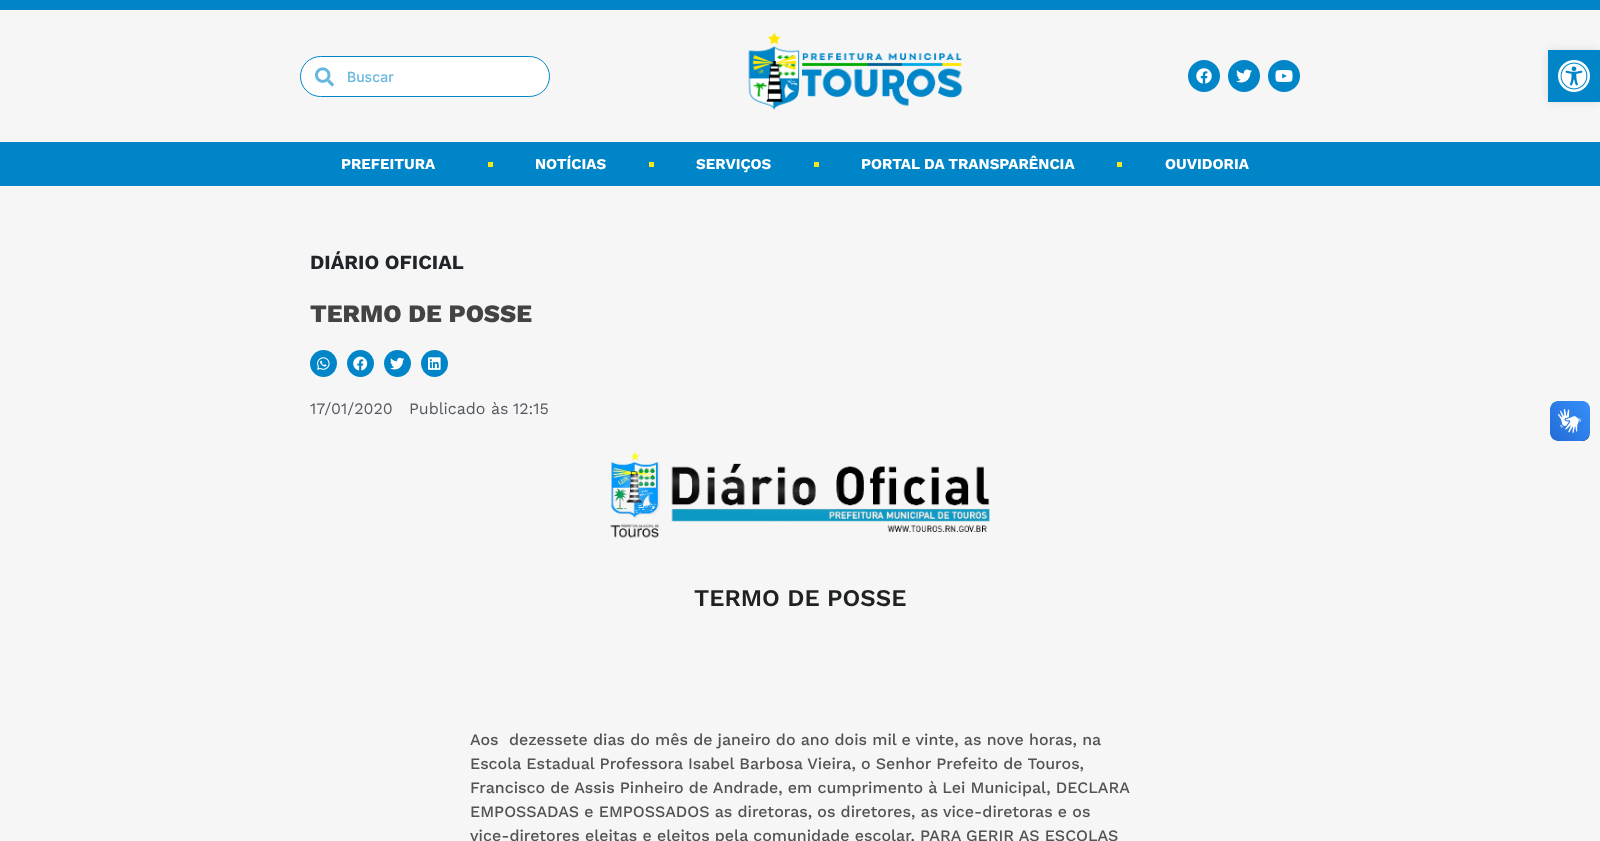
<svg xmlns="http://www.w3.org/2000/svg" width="1600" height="841">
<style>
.a{font:500 14px Inter;fill:#66b6de}
.b{font:bold 15px Work Sans;fill:#fff}
.c{font:bold 20px Work Sans;fill:#212529}
.d{font:800 25px Work Sans;fill:#434343}
.e{font:16px Work Sans;fill:#54595f}
.f{font:600 24px Work Sans;fill:#1f2122}
.g{font:500 16px Work Sans;fill:#535353}
</style>
<rect width="100%" height="100%" fill="#f6f6f6"/>
<path fill="#0086c8" d="M0 0h1600v10H0z"/>
<rect fill="#fff" stroke="#0086c8" x="300.5" y="56.5" width="249" height="40" rx="20"/>
<image href="1.png" x="315" y="67" width="19" height="20"/>
<image href="2.png" x="748" y="32" width="215" height="78"/>
<circle fill="#0086c8" cx="1204" cy="76" r="16"/>
<image href="3.png" x="1196" y="68" width="16" height="16"/>
<circle fill="#0086c8" cx="1244" cy="76" r="16"/>
<image href="4.png" x="1236" y="69" width="16" height="14"/>
<circle fill="#0086c8" cx="1284" cy="76" r="16"/>
<image href="5.png" x="1275" y="70" width="18" height="12"/>
<path fill="#0086c8" d="M0 142h1600v44H0z"/>
<path fill="#fae61d" d="M488 162h5v5H488z"/>
<path fill="#fae61d" d="M649 162h5v5H649z"/>
<path fill="#fae61d" d="M814 162h5v5H814z"/>
<path fill="#fae61d" d="M1117 162h5v5H1117z"/>
<path fill="#0000001a" filter="blur(5px)" d="M1548 50h52v52H1548z"/>
<path fill="#0086c8" d="M1548 50h52v52H1548z"/>
<image href="6.png" x="1558" y="60" width="32" height="32"/>
<circle fill="#0086c8" cx="323.5" cy="363.5" r="13.5"/>
<image href="7.png" x="317" y="357" width="13" height="13"/>
<circle fill="#0086c8" cx="360.5" cy="363.5" r="13.5"/>
<image href="8.png" x="353" y="356" width="15" height="15"/>
<circle fill="#0086c8" cx="397.5" cy="363.5" r="13.5"/>
<image href="9.png" x="390" y="357" width="15" height="13"/>
<circle fill="#0086c8" cx="434.5" cy="363.5" r="13.5"/>
<image href="10.png" x="428" y="357" width="13" height="13"/>
<image href="11.png" x="610" y="451" width="380" height="87"/>
<image href="12.png" x="1550" y="401" width="40" height="40"/>
<image href="13.png" x="1550" y="401" width="40" height="40"/>
<text class="a" x="347" y="82">Buscar</text>
<text class="b" x="341" y="169">PREFEITURA</text>
<text class="b" x="535" y="169">NOTÍCIAS</text>
<text class="b" x="696" y="169">SERVIÇOS</text>
<text class="b" x="861" y="169">PORTAL DA TRANSPARÊNCIA</text>
<text class="b" x="1165" y="169">OUVIDORIA</text>
<text class="c" x="310" y="269">DIÁRIO OFICIAL</text>
<text class="d" x="310" y="322">TERMO DE POSSE</text>
<text class="e" x="310" y="414">17/01/2020</text>
<text class="e" x="409" y="414">Publicado às</text>
<text class="e" x="513" y="414">12:15</text>
<text class="f" x="694" y="606">TERMO DE POSSE</text>
<text class="g" xml:space="preserve" x="470" y="745">Aos  dezessete dias do mês de janeiro do ano dois mil e vinte, as nove horas, na</text>
<text class="g" x="470" y="769">Escola Estadual Professora Isabel Barbosa Vieira, o Senhor Prefeito de Touros,</text>
<text class="g" x="470" y="793">Francisco de Assis Pinheiro de Andrade, em cumprimento à Lei Municipal, DECLARA</text>
<text class="g" x="470" y="817">EMPOSSADAS e EMPOSSADOS as diretoras, os diretores, as vice-diretoras e os</text>
<text class="g" x="470" y="841">vice-diretores eleitas e eleitos pela comunidade escolar, PARA GERIR AS ESCOLAS</text>
</svg>
